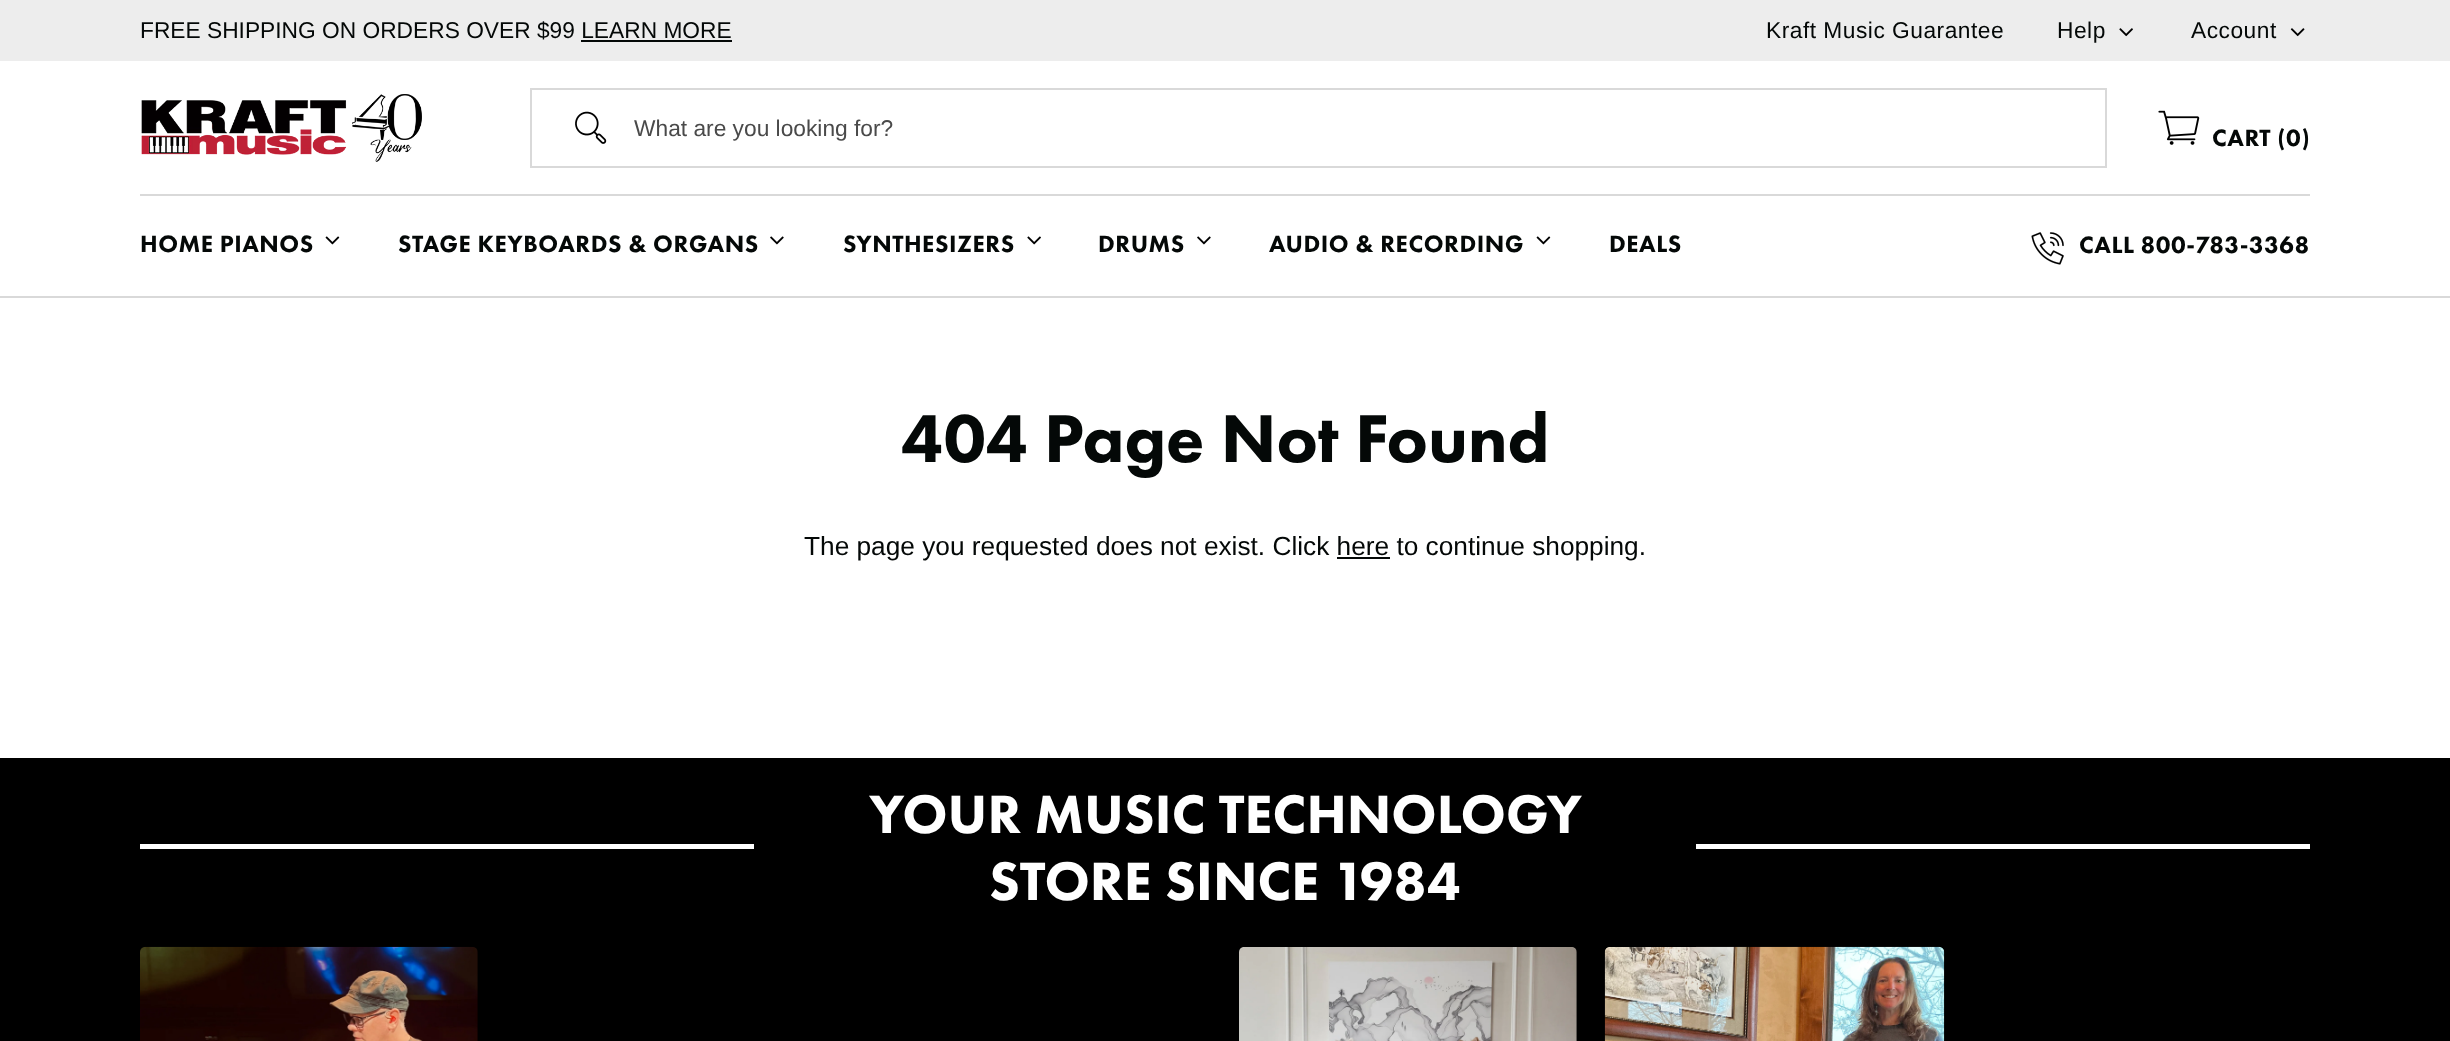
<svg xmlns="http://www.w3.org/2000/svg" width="2450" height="1041">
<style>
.a{font:22.75px Arimo;fill:#040807}
.b{font:22.75px Arimo;letter-spacing:0.5px;fill:#040807}
.c{font:22.75px Arimo;fill:#4a4a4a}
.d{font:24.5px Futura PT;letter-spacing:0.5px;fill:#040807}
.e{font:70px Futura PT;fill:#040807}
.f{font:26.25px Arimo;fill:#040807}
.g{font:56px Futura PT;fill:#fff}
</style>
<rect width="100%" height="100%" fill="#fff"/>
<path fill="#d9d9d9" d="M0 296h2450v2H0z"/>
<path fill="#ededed" d="M0 0h2450v61H0z"/>
<path fill="#040807" d="M581 40h151v2H581z"/>
<image href="1.png" x="2119" y="28" width="14" height="9"/>
<image href="2.png" x="2290" y="28" width="15" height="9"/>
<image href="3.png" x="141" y="94" width="281" height="68"/>
<path fill="none" stroke="#d9d9d9" stroke-width="2" d="M531 89h1575v78H531z"/>
<image href="4.png" x="575" y="111" width="32" height="33"/>
<image href="5.png" x="2158" y="110" width="42" height="35"/>
<path fill="#d9d9d9" d="M140 194h2170v2H140z"/>
<image href="6.png" x="325" y="236" width="15" height="9"/>
<image href="7.png" x="770" y="236" width="14" height="9"/>
<image href="8.png" x="1027" y="236" width="14" height="9"/>
<image href="7.png" x="1197" y="236" width="14" height="9"/>
<image href="6.png" x="1536" y="236" width="15" height="9"/>
<image href="9.png" x="2031" y="232" width="33" height="33"/>
<path fill="#040807" d="M1337 557h53v2H1337z"/>
<path fill="#000" d="M0 758h2450v283H0z"/>
<path fill="#fff" d="M140 844h2170v5H140z"/>
<image href="12.png" x="1604" y="946" width="341" height="95"/>
<path fill="#000" d="M754 844h942v103H754z"/>
<image href="10.png" x="140" y="946" width="338" height="95"/>
<image href="11.png" x="1239" y="947" width="338" height="94"/>
<text class="a" x="140" y="38">FREE SHIPPING ON ORDERS OVER $99 LEARN MORE</text>
<text class="b" x="1766" y="38">Kraft Music Guarantee</text>
<text class="b" x="2057" y="38">Help</text>
<text class="b" x="2191" y="38">Account</text>
<text class="c" x="634" y="136">What are you looking for?</text>
<text class="d" x="2212" y="146">CART (0)</text>
<text class="d" x="140" y="252">HOME PIANOS</text>
<text class="d" x="398" y="252">STAGE KEYBOARDS &amp; ORGANS</text>
<text class="d" x="843" y="252">SYNTHESIZERS</text>
<text class="d" x="1098" y="252">DRUMS</text>
<text class="d" x="1269" y="252">AUDIO &amp; RECORDING</text>
<text class="d" x="1609" y="252">DEALS</text>
<text class="d" x="2079" y="253">CALL 800-783-3368</text>
<text class="e" x="901" y="462">404 Page Not Found</text>
<text class="f" x="804" y="555">The page you requested does not exist. Click here to continue shopping.</text>
<text class="g" x="869" y="833">YOUR MUSIC TECHNOLOGY</text>
<text class="g" x="989" y="900">STORE SINCE 1984</text>
</svg>
